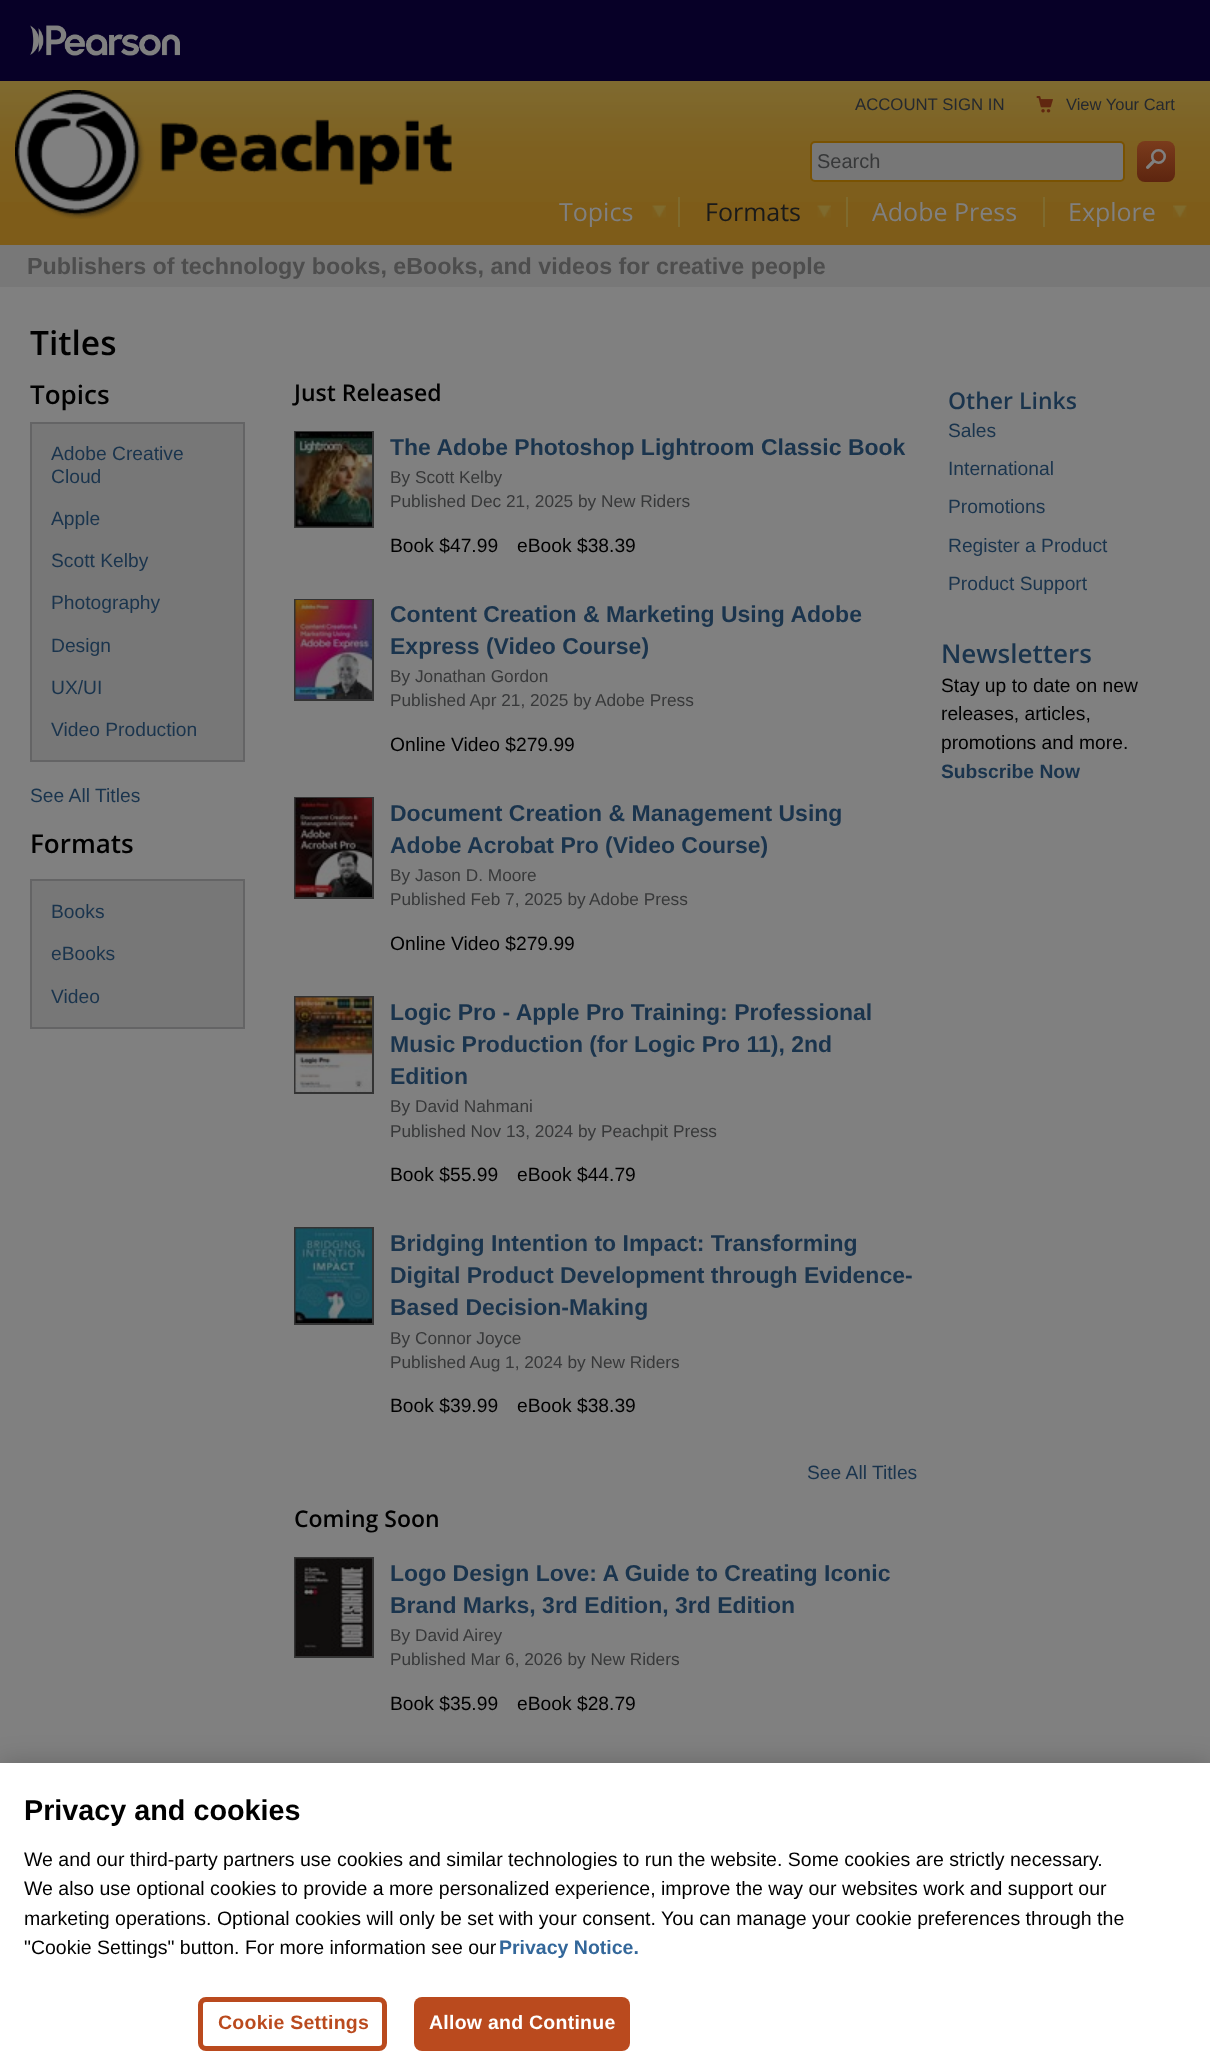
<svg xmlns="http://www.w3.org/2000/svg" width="1210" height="2070">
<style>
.a{font:16.75px Liberation Sans;fill:#25292f}
.b{font:16.5px Liberation Sans;fill:#25292f}
.c{font:20px Liberation Sans;fill:#373839}
.d{font:20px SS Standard;fill:#808080}
.e{font:25px Open Sans;fill:#808080}
.f{font:25px Open Sans;fill:#1a1a1a}
.g{font:bold 23.3px Liberation Sans;fill:#4d4d4d}
.h{font:600 33.5px Open Sans;fill:#000}
.i{font:600 26px Open Sans;fill:#000}
.j{font:19.25px Liberation Sans;fill:#1a344d}
.k{font:600 23px Open Sans;fill:#000}
.l{font:bold 23px Liberation Sans;fill:#1a344d}
.m{font:17.25px Liberation Sans;fill:#373839}
.n{font:19.25px Liberation Sans;fill:#000}
.o{font:600 23px Open Sans;fill:#1a344d}
.p{font:600 26px Open Sans;fill:#1a344d}
.q{font:bold 19.25px Liberation Sans;fill:#1a344d}
.r{font:bold 28.75px Liberation Sans;fill:#000}
.s{font:19.5px Liberation Sans;fill:#000}
.t{font:bold 19.5px Liberation Sans;fill:#33679a}
.u{font:bold 19.5px Liberation Sans;letter-spacing:0.25px;fill:#ba4a1e}
.v{font:bold 19.5px Liberation Sans;letter-spacing:0.25px;fill:#fff}
</style>
<defs>
<linearGradient id="g1" gradientUnits="userSpaceOnUse" x1="1156" y1="141" x2="1156" y2="182"><stop offset="0" stop-color="#7a3b1c"/><stop offset="1" stop-color="#5d250f"/></linearGradient>
</defs>
<rect width="100%" height="100%" fill="#7e5c19"/>
<image href="1.png" x="0" y="81" width="1210" height="121"/>
<path fill="#070027" d="M0 0h1210v81H0z"/>
<image href="2.png" x="30" y="25" width="150" height="31"/>
<image href="3.png" x="15" y="90" width="437" height="129"/>
<image href="4.png" x="1036" y="96" width="17" height="17"/>
<rect fill="#777" stroke="#795202" stroke-width="2" x="811" y="142" width="313" height="39" rx="4"/>
<rect fill="url(#g1)" x="1137" y="141" width="38" height="41" rx="8"/>
<image href="5.png" x="652" y="205" width="14" height="13"/>
<image href="6.png" x="817" y="205" width="14" height="13"/>
<path fill="#7f6b2f" d="M678 197h2v30H678z"/>
<path fill="#7f6b2f" d="M846 197h2v30H846z"/>
<image href="7.png" x="1173" y="205" width="14" height="13"/>
<path fill="#7f6b2f" d="M1043 197h2v30H1043z"/>
<path fill="#787878" d="M0 245h1210v42H0z"/>
<path fill="#808080" d="M0 287h1210v1476H0z"/>
<path fill="#777" stroke="#646465" stroke-width="2" d="M31 423h213v338H31z"/>
<path fill="#777" stroke="#646465" stroke-width="2" d="M31 880h213v148H31z"/>
<path fill="none" stroke="#333" stroke-width="2" d="M295 432h78v95H295z"/>
<image href="8.png" x="295" y="432" width="77" height="95"/>
<path fill="none" stroke="#333" stroke-width="2" d="M295 600h78v100H295z"/>
<image href="9.png" x="295" y="600" width="77" height="99"/>
<path fill="none" stroke="#333" stroke-width="2" d="M295 798h78v100H295z"/>
<image href="10.png" x="295" y="798" width="77" height="99"/>
<path fill="none" stroke="#333" stroke-width="2" d="M295 997h78v96H295z"/>
<image href="11.png" x="295" y="997" width="77" height="95"/>
<path fill="none" stroke="#333" stroke-width="2" d="M295 1228h78v96H295z"/>
<image href="12.png" x="295" y="1228" width="77" height="95"/>
<path fill="none" stroke="#333" stroke-width="2" d="M295 1558h78v99H295z"/>
<image href="13.png" x="295" y="1558" width="77" height="98"/>
<path fill="#00000033" filter="blur(13.5px)" d="M0 1763h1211v307H0z"/>
<path fill="#fff" d="M0 1763h1210v307H0z"/>
<rect fill="none" stroke="#ba4a1e" stroke-width="5" x="200.5" y="1999.5" width="184" height="49" rx="5.5"/>
<rect fill="#ba4a1e" x="414" y="1997" width="216" height="54" rx="8"/>
<text class="a" x="855" y="110">ACCOUNT SIGN IN</text>
<text class="b" x="1066" y="110">View Your Cart</text>
<text class="c" x="817" y="168">Search</text>
<text class="d" x="1146" y="169">🔎</text>
<text class="e" x="559" y="221">Topics</text>
<text class="f" x="705" y="221">Formats</text>
<text class="e" x="872" y="221">Adobe Press</text>
<text class="e" x="1068" y="221">Explore</text>
<text class="g" x="27" y="274">Publishers of technology books, eBooks, and videos for creative people</text>
<text class="h" x="30" y="355">Titles</text>
<text class="i" x="30" y="404">Topics</text>
<text class="j" x="51" y="460">Adobe Creative</text>
<text class="j" x="51" y="483">Cloud</text>
<text class="j" x="51" y="525">Apple</text>
<text class="j" x="51" y="567">Scott Kelby</text>
<text class="j" x="51" y="609">Photography</text>
<text class="j" x="51" y="652">Design</text>
<text class="j" x="51" y="694">UX/UI</text>
<text class="j" x="51" y="736">Video Production</text>
<text class="j" x="30" y="802">See All</text>
<text class="j" x="95" y="802">Titles</text>
<text class="i" x="30" y="853">Formats</text>
<text class="j" x="51" y="918">Books</text>
<text class="j" x="51" y="960">eBooks</text>
<text class="j" x="51" y="1003">Video</text>
<text class="k" x="294" y="401">Just Released</text>
<text class="l" x="390" y="455">The Adobe Photoshop Lightroom Classic Book</text>
<text class="m" x="390" y="483">By Scott Kelby</text>
<text class="m" x="390" y="507">Published Dec 21, 2025 by New Riders</text>
<text class="n" x="390" y="552">Book $47.99</text>
<text class="n" x="517" y="552">eBook $38.39</text>
<text class="l" x="390" y="622">Content Creation &amp; Marketing Using Adobe</text>
<text class="l" x="390" y="654">Express (Video Course)</text>
<text class="m" x="390" y="682">By Jonathan Gordon</text>
<text class="m" x="390" y="706">Published Apr 21, 2025 by</text>
<text class="m" x="595" y="706">Adobe Press</text>
<text class="n" x="390" y="751">Online Video $279.99</text>
<text class="l" x="390" y="821">Document Creation &amp; Management Using</text>
<text class="l" x="390" y="853">Adobe Acrobat Pro (Video Course)</text>
<text class="m" x="390" y="881">By Jason D. Moore</text>
<text class="m" x="390" y="905">Published Feb 7, 2025 by</text>
<text class="m" x="589" y="905">Adobe Press</text>
<text class="n" x="390" y="950">Online Video $279.99</text>
<text class="l" x="390" y="1020">Logic Pro - Apple Pro Training: Professional</text>
<text class="l" x="390" y="1052">Music Production (for Logic Pro 11), 2nd</text>
<text class="l" x="390" y="1084">Edition</text>
<text class="m" x="390" y="1112">By David Nahmani</text>
<text class="m" x="390" y="1137">Published Nov 13, 2024 by Peachpit Press</text>
<text class="n" x="390" y="1181">Book $55.99</text>
<text class="n" x="517" y="1181">eBook $44.79</text>
<text class="l" x="390" y="1251">Bridging Intention to Impact: Transforming</text>
<text class="l" x="390" y="1283">Digital Product Development through Evidence-</text>
<text class="l" x="390" y="1315">Based Decision-Making</text>
<text class="m" x="390" y="1344">By Connor Joyce</text>
<text class="m" x="390" y="1368">Published Aug 1, 2024 by New Riders</text>
<text class="n" x="390" y="1412">Book $39.99</text>
<text class="n" x="517" y="1412">eBook $38.39</text>
<text class="j" x="807" y="1479">See All Titles</text>
<text class="k" x="294" y="1527">Coming Soon</text>
<text class="l" x="390" y="1581">Logo Design Love: A Guide to Creating Iconic</text>
<text class="l" x="390" y="1613">Brand Marks, 3rd Edition, 3rd Edition</text>
<text class="m" x="390" y="1641">By David Airey</text>
<text class="m" x="390" y="1665">Published Mar 6, 2026 by New Riders</text>
<text class="n" x="390" y="1710">Book $35.99</text>
<text class="n" x="517" y="1710">eBook $28.79</text>
<text class="o" x="948" y="409">Other Links</text>
<text class="j" x="948" y="437">Sales</text>
<text class="j" x="948" y="475">International</text>
<text class="j" x="948" y="513">Promotions</text>
<text class="j" x="948" y="552">Register a Product</text>
<text class="j" x="948" y="590">Product Support</text>
<text class="p" x="941" y="663">Newsletters</text>
<text class="n" x="941" y="692">Stay up to date on new</text>
<text class="n" x="941" y="720">releases, articles,</text>
<text class="n" x="941" y="749">promotions and more.</text>
<text class="q" x="941" y="778">Subscribe Now</text>
<text class="r" x="24" y="1820">Privacy and cookies</text>
<text class="s" x="24" y="1866">We and our third-party partners use cookies and similar technologies to run the website. Some cookies are strictly necessary.</text>
<text class="s" x="24" y="1895">We also use optional cookies to provide a more personalized experience, improve the way our websites work and support our</text>
<text class="s" x="24" y="1925">marketing operations. Optional cookies will only be set with your consent. You can manage your cookie preferences through the</text>
<text class="s" x="24" y="1954">"Cookie Settings" button. For more information see our</text>
<text class="t" x="499" y="1954">Privacy Notice.</text>
<text class="u" x="218" y="2029">Cookie Settings</text>
<text class="v" x="429" y="2029">Allow and Continue</text>
</svg>
